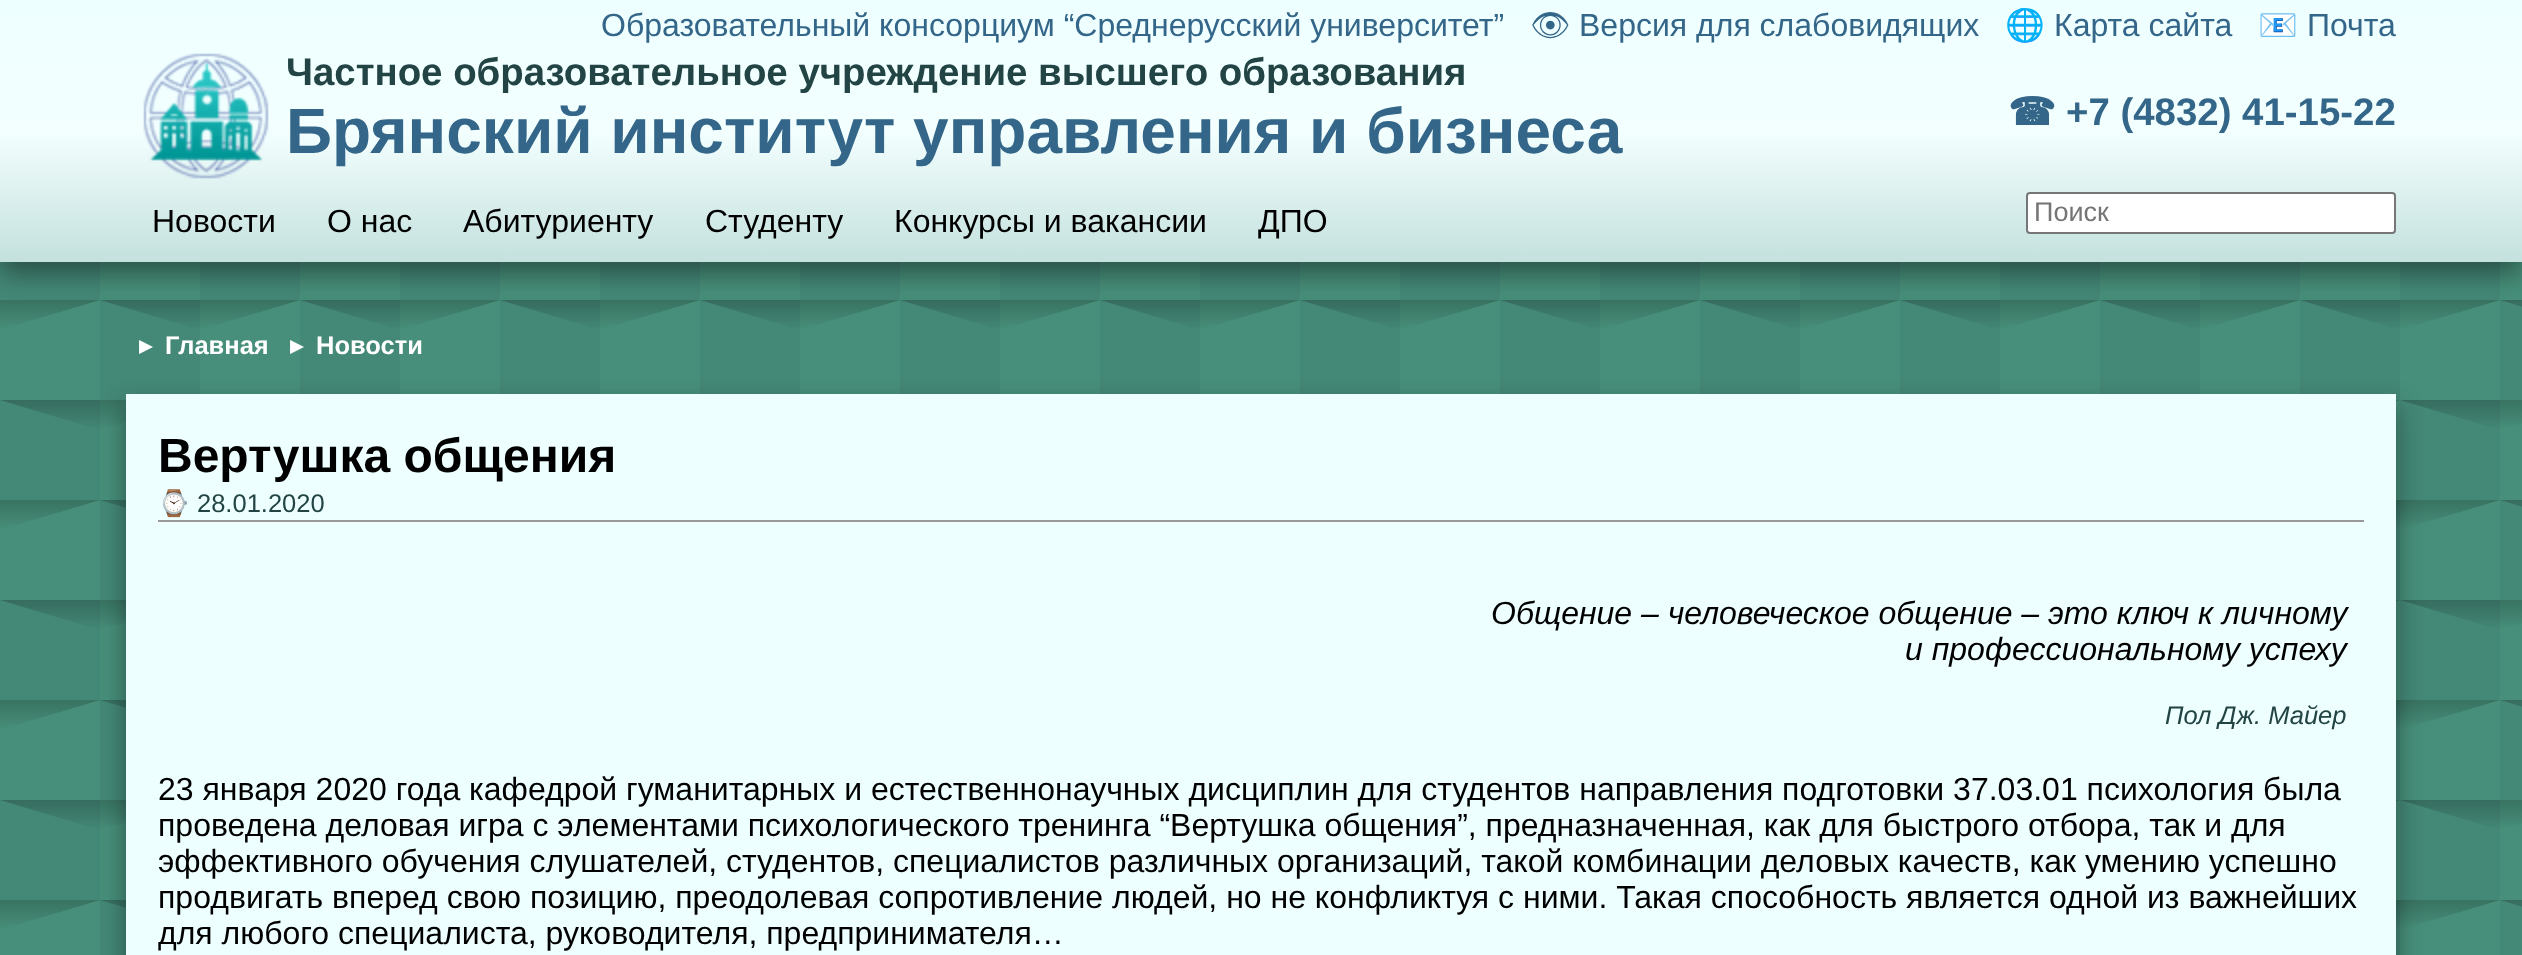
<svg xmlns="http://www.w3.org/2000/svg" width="2522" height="955">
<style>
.a{font:32px Liberation Sans;fill:#368}
.b{font:32px Noto Emoji;fill:#368}
.c{font:32px Noto Color Emoji;fill:#368}
.d{font:bold 38.4px Liberation Sans;fill:#244}
.e{font:bold 64px Liberation Sans;fill:#368}
.f{font:bold 38.4px DejaVu Sans;fill:#368}
.g{font:bold 38.4px Liberation Sans;fill:#368}
.h{font:32px Liberation Sans;fill:#000}
.i{font:27px Liberation Sans;fill:#757575}
.j{font:bold 25.5px DejaVu Sans;fill:#fff}
.k{font:bold 25.5px Liberation Sans;fill:#fff}
.l{font:bold 48px Liberation Sans;fill:#000}
.m{font:25.5px Noto Color Emoji;fill:#244}
.n{font:25.5px Liberation Sans;fill:#244}
.o{font:italic 32px Liberation Sans;fill:#000}
.p{font:italic 25.5px Liberation Sans;fill:#244}
</style>
<defs>
<linearGradient id="g1" gradientUnits="userSpaceOnUse" x1="1261" y1="0" x2="1261" y2="262"><stop offset="0" stop-color="#eff"/><stop offset="0.5" stop-color="#f3ffff"/><stop offset="1" stop-color="#c4e1dd"/></linearGradient>
</defs>
<rect width="100%" height="100%" fill="#487"/>
<image href="1.png" x="0" y="262" width="2522" height="693"/>
<path fill="#00000066" filter="blur(13px)" d="M0 12h2522v262H0z"/>
<path fill="url(#g1)" d="M0 0h2522v262H0z"/>
<image href="2.png" x="143" y="53" width="126" height="126"/>
<rect fill="#fff" stroke="#767676" stroke-width="2" x="2027" y="193" width="368" height="40" rx="3"/>
<path fill="#00000066" filter="blur(13px)" d="M126 406h2270v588H126z"/>
<path fill="#eff" d="M126 394h2270v561H126z"/>
<path fill="#999" d="M158 520h2206v2H158z"/>
<text class="a" x="601" y="36">Образовательный консорциум “Среднерусский университет”</text>
<text class="b" x="1530" y="36">👁</text>
<text class="a" x="1579" y="36">Версия для слабовидящих</text>
<text class="c" x="2005" y="36">🌐</text>
<text class="a" x="2054" y="36">Карта сайта</text>
<text class="c" x="2258" y="36">📧</text>
<text class="a" x="2307" y="36">Почта</text>
<text class="d" x="286" y="85">Частное образовательное учреждение высшего образования</text>
<text class="e" x="286" y="153">Брянский институт управления и бизнеса</text>
<text class="f" x="2008" y="125">☎</text>
<text class="g" x="2066" y="125">+7 (4832) 41-15-22</text>
<text class="h" x="152" y="232">Новости</text>
<text class="h" x="327" y="232">О нас</text>
<text class="h" x="463" y="232">Абитуриенту</text>
<text class="h" x="705" y="232">Студенту</text>
<text class="h" x="894" y="232">Конкурсы и вакансии</text>
<text class="h" x="1258" y="232">ДПО</text>
<text class="i" x="2034" y="221">Поиск</text>
<text class="j" x="139" y="354">▸</text>
<text class="k" x="165" y="354">Главная</text>
<text class="j" x="290" y="354">▸</text>
<text class="k" x="316" y="354">Новости</text>
<text class="l" x="158" y="472">Вертушка общения</text>
<text class="m" x="158" y="512">⌚</text>
<text class="n" x="197" y="512">28.01.2020</text>
<text class="o" x="1491" y="624">Общение – человеческое общение – это ключ к личному</text>
<text class="o" x="1905" y="660">и профессиональному успеху</text>
<text class="p" x="2165" y="724">Пол Дж. Майер</text>
<text class="h" x="158" y="800">23 января 2020 года кафедрой гуманитарных и естественнонаучных дисциплин для студентов направления подготовки 37.03.01 психология была</text>
<text class="h" x="158" y="836">проведена деловая игра с элементами психологического тренинга “Вертушка общения”, предназначенная, как для быстрого отбора, так и для</text>
<text class="h" x="158" y="872">эффективного обучения слушателей, студентов, специалистов различных организаций, такой комбинации деловых качеств, как умению успешно</text>
<text class="h" x="158" y="908">продвигать вперед свою позицию, преодолевая сопротивление людей, но не конфликтуя с ними. Такая способность является одной из важнейших</text>
<text class="h" x="158" y="944">для любого специалиста, руководителя, предпринимателя…</text>
</svg>
